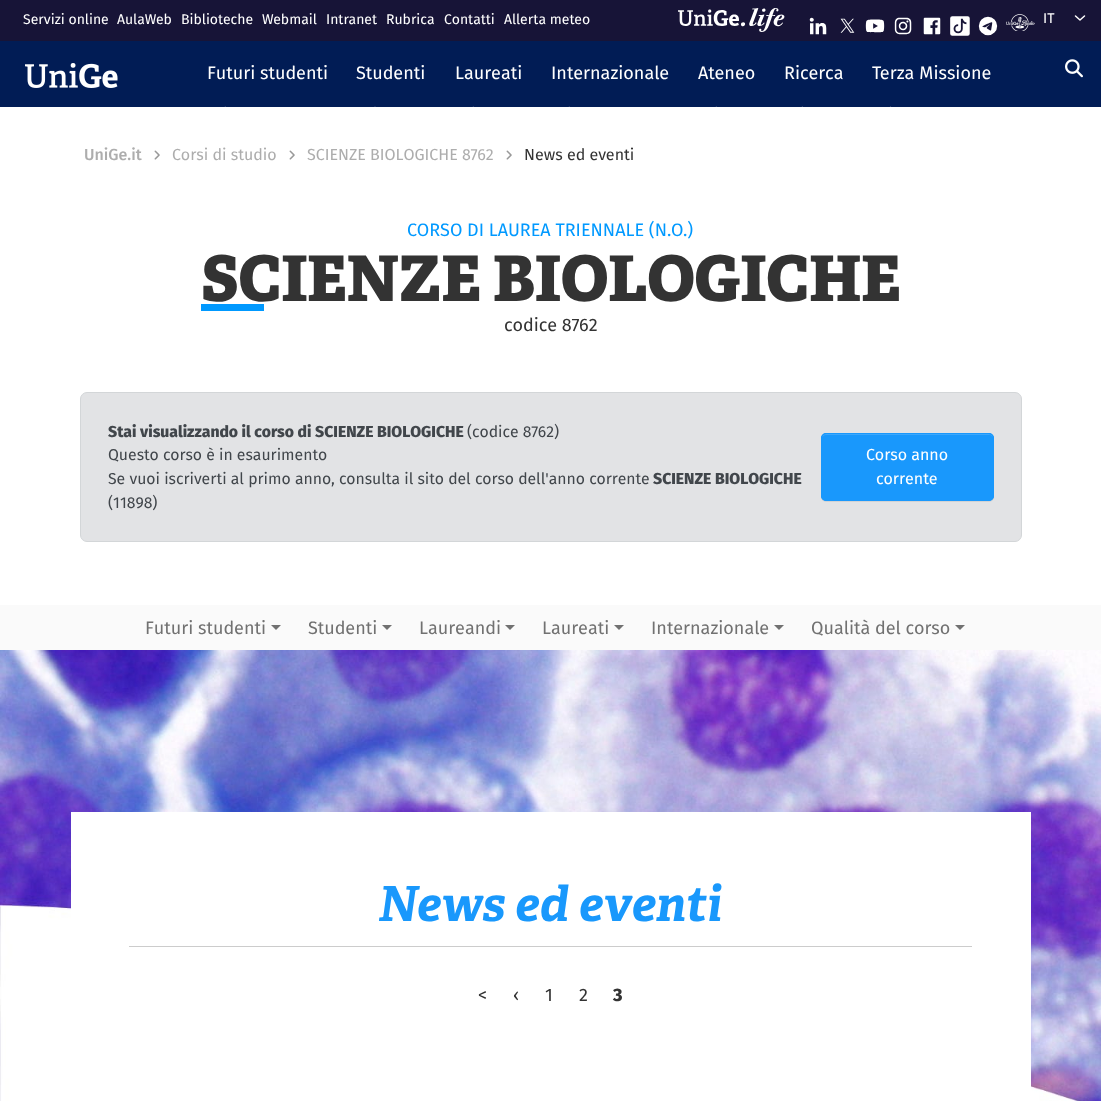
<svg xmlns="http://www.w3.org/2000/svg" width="1101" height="1101">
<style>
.a{font:14px Fira Sans;fill:#fff}
.b{font:18px Fira Sans;fill:#fff}
.c{font:500 16px Fira Sans;fill:#adadad}
.d{font:16px Fira Sans;fill:#adadad}
.e{font:16px Fira Sans;fill:#333}
.f{font:18px Fira Sans;fill:#09f}
.g{font:800 63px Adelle;fill:#333}
.h{font:18px Fira Sans;fill:#333}
.i{font:800 15.75px Fira Sans;fill:#41464b}
.j{font:15.75px Fira Sans;fill:#41464b}
.k{font:16px Fira Sans;fill:#fff}
.l{font:18px Fira Sans;fill:#717171}
.m{font:italic bold 48.5px Adelle;fill:#1998fc}
.n{font:800 18px Fira Sans;fill:#333}
</style>
<rect width="100%" height="100%" fill="#fff"/>
<path fill="#171437" d="M0 0h1101v41H0z"/>
<image href="1.png" x="678" y="8" width="107" height="24"/>
<image href="2.png" x="809" y="17" width="18" height="18"/>
<image href="3.png" x="840" y="18" width="15" height="15"/>
<image href="4.png" x="865" y="19" width="20" height="14"/>
<image href="5.png" x="894" y="17" width="18" height="18"/>
<image href="6.png" x="923" y="17" width="18" height="18"/>
<image href="7.png" x="950" y="16" width="20" height="20"/>
<image href="8.png" x="978" y="16" width="20" height="20"/>
<image href="9.png" x="1006" y="14" width="29" height="17"/>
<path fill="none" stroke="#fff" stroke-width="1.5" stroke-linecap="round" stroke-linejoin="round" d="M1075.5 16l4.5 4l4.5-4"/>
<path fill="#011c55" d="M0 41h1101v66H0z"/>
<image href="10.png" x="25" y="63" width="93" height="25"/>
<path fill="#fff" d="M226.5 107.5l10 9.5c1 1 1 2.5 0 3l-10 10c-.5 .5-2 .5-2.5 0l-10-10c-1-.5-1-2 0-3l10-9.5c.5-1 2-1 2.5 0z"/>
<path fill="#fff" d="M376.5 107.5l10 9.5c.5 1 .5 2.5 0 3l-10 10c-1 .5-2 .5-3 0l-9.5-10c-1-.5-1-2 0-3l9.5-9.5c1-1 2-1 3 0z"/>
<path fill="#fff" d="M474.5 107.5l10 9.5c1 1 1 2.5 0 3l-10 10c-.5 .5-2 .5-2.5 0l-10-10c-1-.5-1-2 0-3l10-9.5c.5-1 2-1 2.5 0z"/>
<path fill="#fff" d="M570.5 107.5l10 9.5c1 1 1 2.5 0 3l-10 10c-.5 .5-2 .5-2.5 0l-10-10c-1-.5-1-2 0-3l10-9.5c.5-1 2-1 2.5 0z"/>
<path fill="#fff" d="M717.5 107.5l10 9.5c1 1 1 2.5 0 3l-10 10c-.5 .5-2 .5-2.5 0l-10-10c-1-.5-1-2 0-3l10-9.5c.5-1 2-1 2.5 0z"/>
<path fill="#fff" d="M804 107.5l9.5 9.5c1 1 1 2.5 0 3l-9.5 10c-1 .5-2.5 .5-3 0l-10-10c-.5-.5-.5-2 0-3l10-9.5c.5-1 2-1 3 0z"/>
<path fill="#fff" d="M892 107.5l10 9.5c.5 1 .5 2.5 0 3l-10 10c-1 .5-2 .5-3 0l-9.5-10c-1-.5-1-2 0-3l9.5-9.5c1-1 2-1 3 0z"/>
<image href="11.png" x="1065" y="59" width="18" height="19"/>
<image href="12.png" x="154" y="150" width="6" height="10"/>
<image href="12.png" x="289" y="150" width="6" height="10"/>
<image href="12.png" x="506" y="150" width="6" height="10"/>
<path fill="#09f" d="M201 304h63v7H201z"/>
<rect fill="#e2e3e5" stroke="#d3d6d8" x="80.5" y="392.5" width="941" height="149" rx="6.5"/>
<rect fill="#00000012" filter="blur(0.5px)" x="821" y="434" width="173" height="68" rx="5"/>
<rect fill="#1998fc" x="821" y="433" width="173" height="68" rx="5"/>
<path fill="#3ca7fc" d="M826 435h164c1 0 3 2 3 3c0-2-2-4-4-4h-163c-2 0-4 2-4 4c0-1 2-3 4-3z"/>
<rect fill="none" stroke="#1998fc" x="821.5" y="433.5" width="172" height="67" rx="4.5"/>
<path fill="#fafafa" d="M0 605h1101v45H0z"/>
<path fill="#717171" d="M271 625h10l-5 5z"/>
<path fill="#717171" d="M382 625h10l-5 5z"/>
<path fill="#717171" d="M505 625h10l-5 5z"/>
<path fill="#717171" d="M614 625h10l-5 5z"/>
<path fill="#717171" d="M774 625h10l-5 5z"/>
<path fill="#717171" d="M955 625h10l-5 5z"/>
<image href="13.png" x="0" y="650" width="1101" height="451"/>
<path fill="#fff" d="M71 812h960v279H71z"/>
<path fill="#ccc" d="M129 946h843v1H129z"/>
<text class="a" x="23" y="24">Servizi online</text>
<text class="a" x="117" y="24">AulaWeb</text>
<text class="a" x="181" y="24">Biblioteche</text>
<text class="a" x="262" y="24">Webmail</text>
<text class="a" x="326" y="24">Intranet</text>
<text class="a" x="386" y="24">Rubrica</text>
<text class="a" x="444" y="24">Contatti</text>
<text class="a" x="504" y="24">Allerta meteo</text>
<text class="a" x="1043" y="23">IT</text>
<text class="b" x="207" y="79">Futuri studenti</text>
<text class="b" x="356" y="79">Studenti</text>
<text class="b" x="455" y="79">Laureati</text>
<text class="b" x="551" y="79">Internazionale</text>
<text class="b" x="698" y="79">Ateneo</text>
<text class="b" x="784" y="79">Ricerca</text>
<text class="b" x="872" y="79">Terza Missione</text>
<text class="c" x="84" y="160">UniGe.it</text>
<text class="d" x="172" y="160">Corsi di studio</text>
<text class="d" x="307" y="160">SCIENZE BIOLOGICHE 8762</text>
<text class="e" x="524" y="160">News ed eventi</text>
<text class="f" x="407" y="236">CORSO DI LAUREA TRIENNALE (N.O.)</text>
<text class="g" x="201" y="301">SCIENZE BIOLOGICHE</text>
<text class="h" x="504" y="331">codice 8762</text>
<text class="i" x="108" y="437">Stai visualizzando il corso di SCIENZE BIOLOGICHE</text>
<text class="j" x="467" y="437">(codice 8762)</text>
<text class="j" x="108" y="460">Questo corso è in esaurimento</text>
<text class="j" x="108" y="484">Se vuoi iscriverti al primo anno, consulta il sito del corso dell'anno corrente</text>
<text class="i" x="653" y="484">SCIENZE BIOLOGICHE</text>
<text class="j" x="108" y="508">(11898)</text>
<text class="k" x="866" y="460">Corso anno</text>
<text class="k" x="876" y="484">corrente</text>
<text class="l" x="145" y="634">Futuri studenti</text>
<text class="l" x="308" y="634">Studenti</text>
<text class="l" x="419" y="634">Laureandi</text>
<text class="l" x="542" y="634">Laureati</text>
<text class="l" x="651" y="634">Internazionale</text>
<text class="l" x="811" y="634">Qualità del corso</text>
<text class="m" x="378" y="921">News ed eventi</text>
<text class="h" x="478" y="1001">&lt;</text>
<text class="h" x="513" y="1001">‹</text>
<text class="h" x="545" y="1001">1</text>
<text class="h" x="579" y="1001">2</text>
<text class="n" x="613" y="1001">3</text>
</svg>
